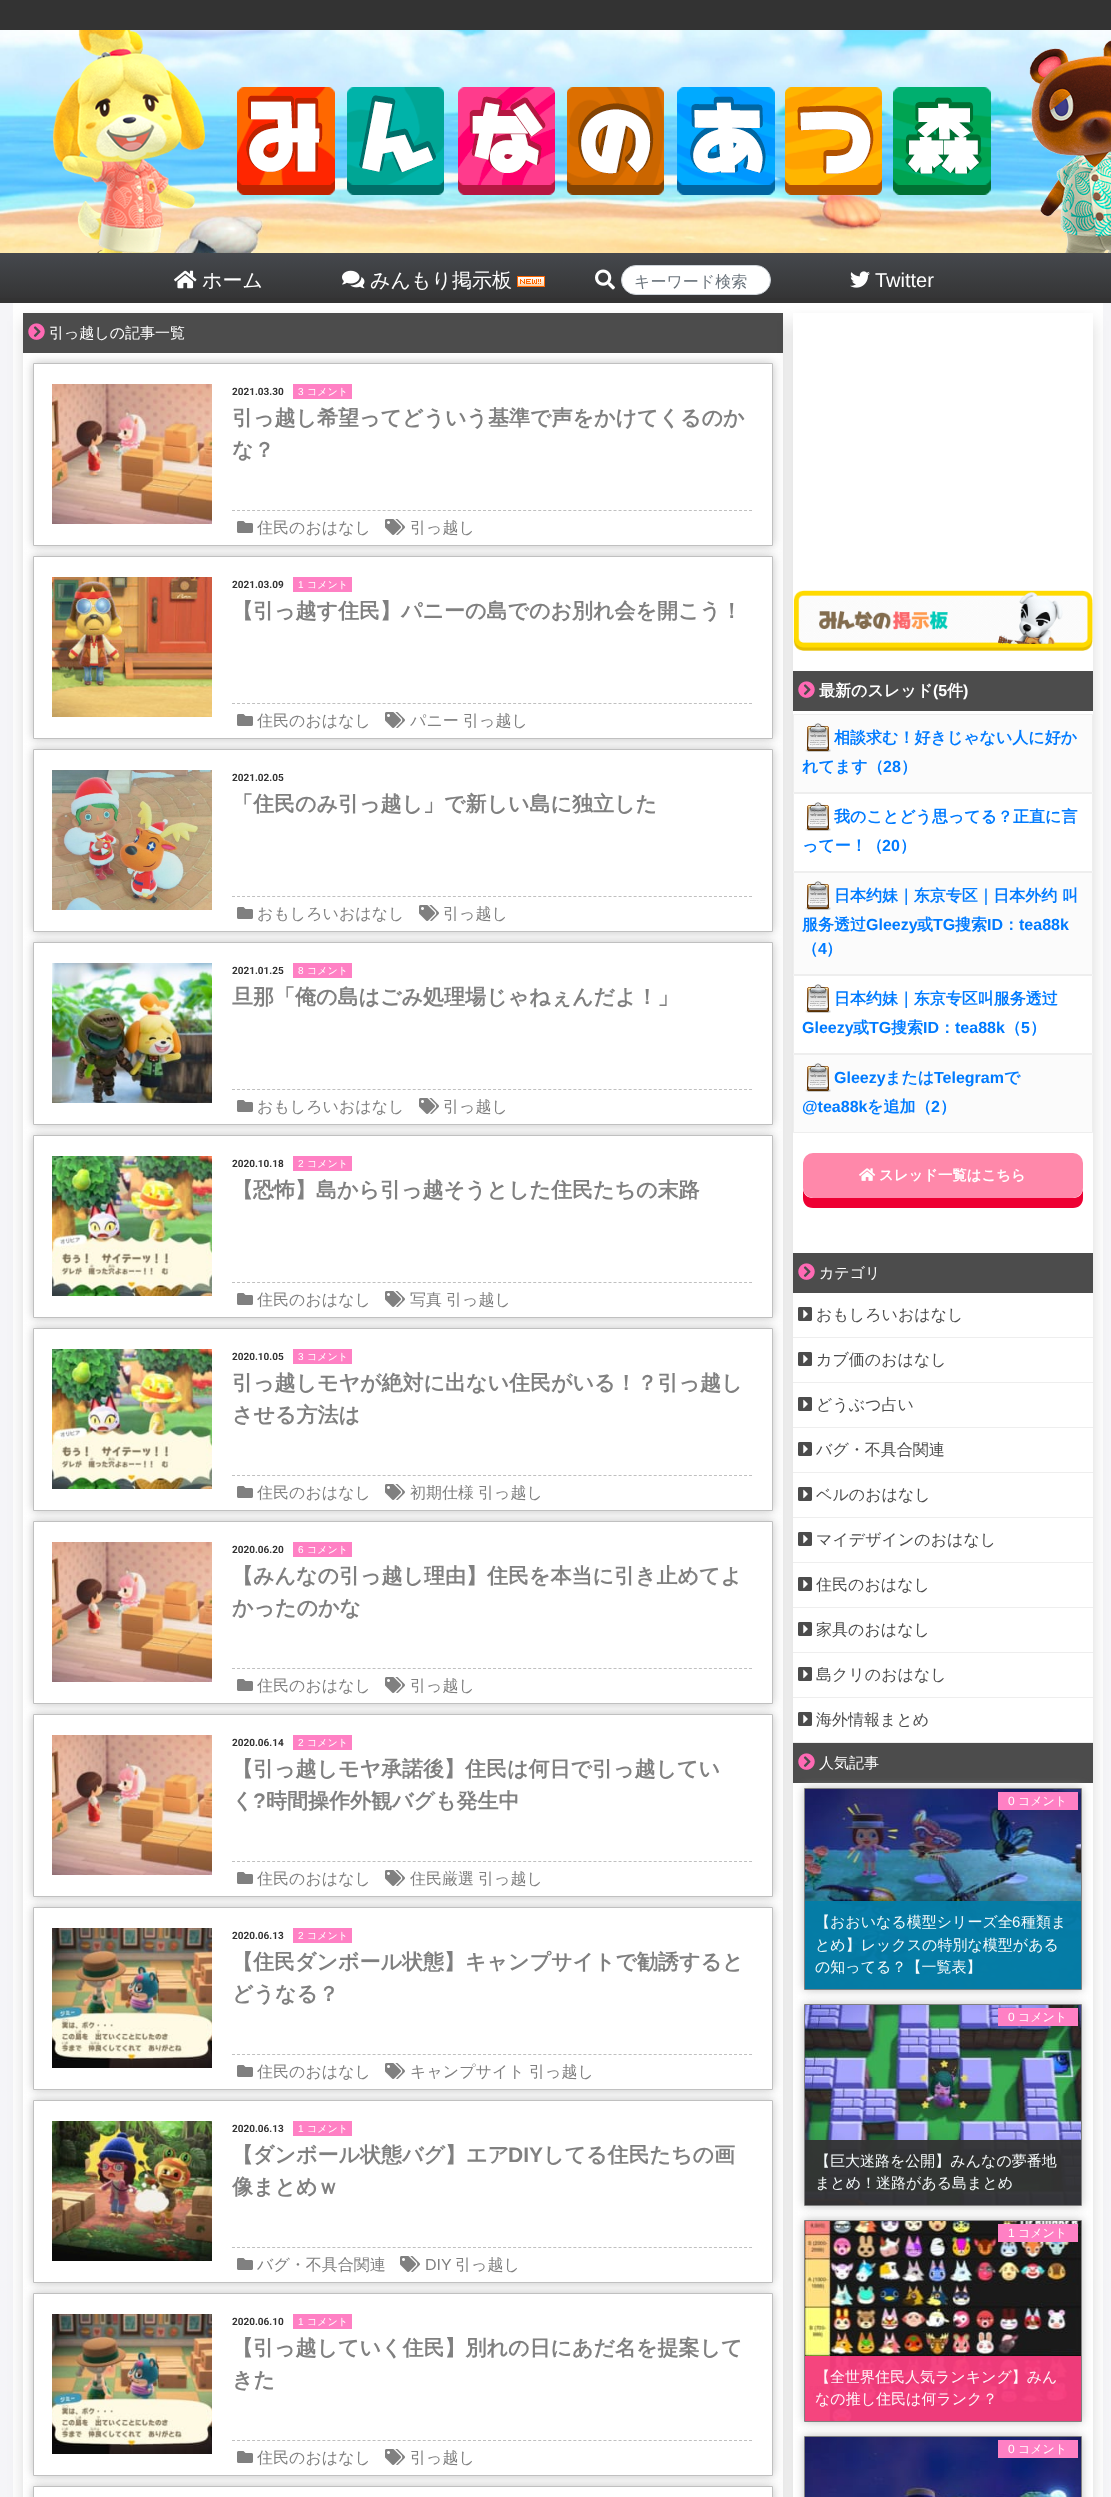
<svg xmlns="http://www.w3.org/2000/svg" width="1111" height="2497">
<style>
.a{font:500 20px WenQuanYi Zen Hei;fill:#fff}
.b{font:500 16px WenQuanYi Zen Hei;fill:#6c757d}
.c{font:20px Liberation Sans;fill:#fff}
.d{font:500 15px WenQuanYi Zen Hei;fill:#fff}
.e{font:bold 10px Roboto;fill:#333}
.f{font:10px Liberation Sans;fill:#fff}
.g{font:500 10px WenQuanYi Zen Hei;fill:#fff}
.h{font:bold 21px WenQuanYi Zen Hei;fill:#808080}
.i{font:500 16px WenQuanYi Zen Hei;fill:#808080}
.j{font:bold 21px Liberation Sans;fill:#808080}
.k{font:16px Liberation Sans;fill:#808080}
.l{font:bold 16px WenQuanYi Zen Hei;fill:#fff}
.m{font:bold 16px Liberation Sans;fill:#fff}
.n{font:bold 16px WenQuanYi Zen Hei;fill:#007bff}
.o{font:bold 16px Liberation Sans;fill:#007bff}
.p{font:bold 14.4px WenQuanYi Zen Hei;fill:#fff}
.q{font:500 16px WenQuanYi Zen Hei;fill:#4c4c4c}
.r{font:12px Liberation Sans;fill:#fff}
.s{font:500 12px WenQuanYi Zen Hei;fill:#fff}
.t{font:500 15px WenQuanYi Zen Hei;fill:#f5fafb}
.u{font:15px Liberation Sans;fill:#f5fafb}
.v{font:500 15px WenQuanYi Zen Hei;fill:#fef7fa}
</style>
<defs>
<linearGradient id="g1" gradientUnits="userSpaceOnUse" x1="556" y1="253" x2="556" y2="303"><stop offset="0" stop-color="#45484d"/><stop offset="1" stop-color="#333"/></linearGradient>
<clipPath id="clip1"><path d="M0 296h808v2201h-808zm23 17h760v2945h-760z" clip-rule="evenodd"/></clipPath>
<clipPath id="clip2"><path d="M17 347h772v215h-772zm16 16h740v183h-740z" clip-rule="evenodd"/></clipPath>
<clipPath id="clip3"><path d="M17 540h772v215h-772zm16 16h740v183h-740z" clip-rule="evenodd"/></clipPath>
<clipPath id="clip4"><path d="M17 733h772v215h-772zm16 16h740v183h-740z" clip-rule="evenodd"/></clipPath>
<clipPath id="clip5"><path d="M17 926h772v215h-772zm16 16h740v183h-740z" clip-rule="evenodd"/></clipPath>
<clipPath id="clip6"><path d="M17 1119h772v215h-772zm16 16h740v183h-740z" clip-rule="evenodd"/></clipPath>
<clipPath id="clip7"><path d="M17 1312h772v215h-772zm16 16h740v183h-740z" clip-rule="evenodd"/></clipPath>
<clipPath id="clip8"><path d="M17 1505h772v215h-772zm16 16h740v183h-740z" clip-rule="evenodd"/></clipPath>
<clipPath id="clip9"><path d="M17 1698h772v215h-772zm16 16h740v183h-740z" clip-rule="evenodd"/></clipPath>
<clipPath id="clip10"><path d="M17 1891h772v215h-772zm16 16h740v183h-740z" clip-rule="evenodd"/></clipPath>
<clipPath id="clip11"><path d="M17 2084h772v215h-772zm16 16h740v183h-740z" clip-rule="evenodd"/></clipPath>
<clipPath id="clip12"><path d="M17 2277h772v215h-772zm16 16h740v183h-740z" clip-rule="evenodd"/></clipPath>
<clipPath id="clip13"><path d="M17 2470h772v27h-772zm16 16h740v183h-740z" clip-rule="evenodd"/></clipPath>
</defs>
<rect width="100%" height="100%" fill="#333"/>
<image href="1.png" x="0" y="30" width="1111" height="223"/>
<image href="2.png" x="53" y="30" width="1058" height="223"/>
<path fill="url(#g1)" d="M0 253h1111v45H0z"/>
<image href="3.png" x="174" y="270" width="23" height="19"/>
<image href="4.png" x="342" y="270" width="23" height="19"/>
<image href="5.png" x="517" y="276" width="28" height="11"/>
<image href="6.png" x="595" y="269" width="20" height="21"/>
<rect fill="#fff" stroke="#ced4da" x="621.5" y="265.5" width="149" height="29" rx="14.5"/>
<image href="7.png" x="850" y="271" width="20" height="17"/>
<path fill="#f5f5f8" d="M0 303h1111v2194H0z"/>
<path fill="#fff" d="M13 303h1090v2194H13z"/>
<g clip-path="url(#clip1)">
<path fill="#00000026" filter="blur(8px)" d="M23 321h760v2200H23z"/>
</g>
<path fill="#4c4c4c" d="M23 313h760v40H23z"/>
<image href="8.png" x="28" y="323" width="17" height="17"/>
<g clip-path="url(#clip2)">
<path fill="#c0c0c0" filter="blur(5px)" d="M33 363h740v183H33z"/>
</g>
<path fill="none" stroke="#c0c0c0" d="M33.5 363.5h739v182H33.5z"/>
<image href="9.png" x="52" y="384" width="160" height="140"/>
<path fill="#ff80c4" d="M293 384h59v15H293z"/>
<path fill="none" stroke="#c0c0c0" stroke-dasharray="3 2.02" d="M232 510.5h520"/>
<image href="10.png" x="237" y="521" width="16" height="12"/>
<image href="11.png" x="385" y="519" width="20" height="16"/>
<g clip-path="url(#clip3)">
<path fill="#c0c0c0" filter="blur(5px)" d="M33 556h740v183H33z"/>
</g>
<path fill="none" stroke="#c0c0c0" d="M33.5 556.5h739v182H33.5z"/>
<image href="12.png" x="52" y="577" width="160" height="140"/>
<path fill="#ff80c4" d="M293 577h59v15H293z"/>
<path fill="none" stroke="#c0c0c0" stroke-dasharray="3 2.02" d="M232 703.5h520"/>
<image href="10.png" x="237" y="714" width="16" height="12"/>
<image href="11.png" x="385" y="712" width="20" height="16"/>
<g clip-path="url(#clip4)">
<path fill="#c0c0c0" filter="blur(5px)" d="M33 749h740v183H33z"/>
</g>
<path fill="none" stroke="#c0c0c0" d="M33.5 749.5h739v182H33.5z"/>
<image href="13.png" x="52" y="770" width="160" height="140"/>
<path fill="none" stroke="#c0c0c0" stroke-dasharray="3 2.02" d="M232 896.5h520"/>
<image href="10.png" x="237" y="907" width="16" height="12"/>
<image href="11.png" x="419" y="905" width="20" height="16"/>
<g clip-path="url(#clip5)">
<path fill="#c0c0c0" filter="blur(5px)" d="M33 942h740v183H33z"/>
</g>
<path fill="none" stroke="#c0c0c0" d="M33.5 942.5h739v182H33.5z"/>
<image href="14.png" x="52" y="963" width="160" height="140"/>
<path fill="#ff80c4" d="M293 963h59v15H293z"/>
<path fill="none" stroke="#c0c0c0" stroke-dasharray="3 2.02" d="M232 1089.5h520"/>
<image href="10.png" x="237" y="1100" width="16" height="12"/>
<image href="11.png" x="419" y="1098" width="20" height="16"/>
<g clip-path="url(#clip6)">
<path fill="#c0c0c0" filter="blur(5px)" d="M33 1135h740v183H33z"/>
</g>
<path fill="none" stroke="#c0c0c0" d="M33.5 1135.5h739v182H33.5z"/>
<image href="15.png" x="52" y="1156" width="160" height="140"/>
<path fill="#ff80c4" d="M293 1156h59v15H293z"/>
<path fill="none" stroke="#c0c0c0" stroke-dasharray="3 2.02" d="M232 1282.5h520"/>
<image href="10.png" x="237" y="1293" width="16" height="12"/>
<image href="11.png" x="385" y="1291" width="20" height="16"/>
<g clip-path="url(#clip7)">
<path fill="#c0c0c0" filter="blur(5px)" d="M33 1328h740v183H33z"/>
</g>
<path fill="none" stroke="#c0c0c0" d="M33.5 1328.5h739v182H33.5z"/>
<image href="15.png" x="52" y="1349" width="160" height="140"/>
<path fill="#ff80c4" d="M293 1349h59v15H293z"/>
<path fill="none" stroke="#c0c0c0" stroke-dasharray="3 2.02" d="M232 1475.5h520"/>
<image href="10.png" x="237" y="1486" width="16" height="12"/>
<image href="11.png" x="385" y="1484" width="20" height="16"/>
<g clip-path="url(#clip8)">
<path fill="#c0c0c0" filter="blur(5px)" d="M33 1521h740v183H33z"/>
</g>
<path fill="none" stroke="#c0c0c0" d="M33.5 1521.5h739v182H33.5z"/>
<image href="9.png" x="52" y="1542" width="160" height="140"/>
<path fill="#ff80c4" d="M293 1542h59v15H293z"/>
<path fill="none" stroke="#c0c0c0" stroke-dasharray="3 2.02" d="M232 1668.5h520"/>
<image href="10.png" x="237" y="1679" width="16" height="12"/>
<image href="11.png" x="385" y="1677" width="20" height="16"/>
<g clip-path="url(#clip9)">
<path fill="#c0c0c0" filter="blur(5px)" d="M33 1714h740v183H33z"/>
</g>
<path fill="none" stroke="#c0c0c0" d="M33.5 1714.5h739v182H33.5z"/>
<image href="16.png" x="52" y="1735" width="160" height="140"/>
<path fill="#ff80c4" d="M293 1735h59v15H293z"/>
<path fill="none" stroke="#c0c0c0" stroke-dasharray="3 2.02" d="M232 1861.5h520"/>
<image href="10.png" x="237" y="1872" width="16" height="12"/>
<image href="11.png" x="385" y="1870" width="20" height="16"/>
<g clip-path="url(#clip10)">
<path fill="#c0c0c0" filter="blur(5px)" d="M33 1907h740v183H33z"/>
</g>
<path fill="none" stroke="#c0c0c0" d="M33.5 1907.5h739v182H33.5z"/>
<image href="17.png" x="52" y="1928" width="160" height="140"/>
<path fill="#ff80c4" d="M293 1928h59v15H293z"/>
<path fill="none" stroke="#c0c0c0" stroke-dasharray="3 2.02" d="M232 2054.5h520"/>
<image href="10.png" x="237" y="2065" width="16" height="12"/>
<image href="11.png" x="385" y="2063" width="20" height="16"/>
<g clip-path="url(#clip11)">
<path fill="#c0c0c0" filter="blur(5px)" d="M33 2100h740v183H33z"/>
</g>
<path fill="none" stroke="#c0c0c0" d="M33.5 2100.5h739v182H33.5z"/>
<image href="18.png" x="52" y="2121" width="160" height="140"/>
<path fill="#ff80c4" d="M293 2121h59v15H293z"/>
<path fill="none" stroke="#c0c0c0" stroke-dasharray="3 2.02" d="M232 2247.5h520"/>
<image href="10.png" x="237" y="2258" width="16" height="12"/>
<image href="11.png" x="400" y="2256" width="20" height="16"/>
<g clip-path="url(#clip12)">
<path fill="#c0c0c0" filter="blur(5px)" d="M33 2293h740v183H33z"/>
</g>
<path fill="none" stroke="#c0c0c0" d="M33.5 2293.5h739v182H33.5z"/>
<image href="17.png" x="52" y="2314" width="160" height="140"/>
<path fill="#ff80c4" d="M293 2314h59v15H293z"/>
<path fill="none" stroke="#c0c0c0" stroke-dasharray="3 2.02" d="M232 2440.5h520"/>
<image href="10.png" x="237" y="2451" width="16" height="12"/>
<image href="11.png" x="385" y="2449" width="20" height="16"/>
<g clip-path="url(#clip13)">
<path fill="#c0c0c0" filter="blur(5px)" d="M33 2486h740v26H33z"/>
</g>
<path fill="none" stroke="#c0c0c0" d="M33.5 2486.5h739v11H33.5z"/>
<path fill="#00000026" filter="blur(8px)" d="M793 321h300v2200H793z"/>
<path fill="#fff" d="M793 313h300v2184H793z"/>
<image href="19.png" x="793" y="590" width="300" height="61"/>
<path fill="#4c4c4c" d="M793 671h300v40H793z"/>
<image href="8.png" x="798" y="681" width="17" height="17"/>
<path fill="#fbfbfb" stroke="#eee" d="M793.5 714.5h299v78H793.5z"/>
<image href="20.png" x="805" y="723" width="26" height="29"/>
<path fill="none" stroke="#eee" d="M793.5 793.5h299v78H793.5z"/>
<image href="21.png" x="805" y="802" width="26" height="29"/>
<path fill="#fbfbfb" stroke="#eee" d="M793.5 872.5h299v102H793.5z"/>
<image href="20.png" x="805" y="881" width="26" height="29"/>
<path fill="none" stroke="#eee" d="M793.5 975.5h299v78H793.5z"/>
<image href="21.png" x="805" y="984" width="26" height="29"/>
<path fill="#fbfbfb" stroke="#eee" d="M793.5 1054.5h299v78H793.5z"/>
<image href="20.png" x="805" y="1063" width="26" height="29"/>
<path fill="#e03" d="M803 1188v10c0 6 4 10 10 10h260c6 0 10-4 10-10v-10c0 6-4 10-10 10h-260c-6 0-10-4-10-10z"/>
<rect fill="#f8a" x="803" y="1153" width="280" height="45" rx="10"/>
<image href="22.png" x="859" y="1168" width="17" height="13"/>
<path fill="#4c4c4c" d="M793 1253h300v40H793z"/>
<image href="8.png" x="798" y="1263" width="17" height="17"/>
<path fill="#eee" d="M793 1337h300v1H793z"/>
<image href="23.png" x="798" y="1307" width="14" height="14"/>
<path fill="#eee" d="M793 1382h300v1H793z"/>
<image href="23.png" x="798" y="1352" width="14" height="14"/>
<path fill="#eee" d="M793 1427h300v1H793z"/>
<image href="23.png" x="798" y="1397" width="14" height="14"/>
<path fill="#eee" d="M793 1472h300v1H793z"/>
<image href="23.png" x="798" y="1442" width="14" height="14"/>
<path fill="#eee" d="M793 1517h300v1H793z"/>
<image href="23.png" x="798" y="1487" width="14" height="14"/>
<path fill="#eee" d="M793 1562h300v1H793z"/>
<image href="23.png" x="798" y="1532" width="14" height="14"/>
<path fill="#eee" d="M793 1607h300v1H793z"/>
<image href="23.png" x="798" y="1577" width="14" height="14"/>
<path fill="#eee" d="M793 1652h300v1H793z"/>
<image href="23.png" x="798" y="1622" width="14" height="14"/>
<path fill="#eee" d="M793 1697h300v1H793z"/>
<image href="23.png" x="798" y="1667" width="14" height="14"/>
<path fill="#eee" d="M793 1742h300v1H793z"/>
<image href="23.png" x="798" y="1712" width="14" height="14"/>
<path fill="#4c4c4c" d="M793 1743h300v40H793z"/>
<image href="8.png" x="798" y="1753" width="17" height="17"/>
<path fill="#c0c0c0" filter="blur(5px)" d="M804 1788h278v202H804z"/>
<path fill="none" stroke="#808080" d="M804.5 1788.5h277v201H804.5z"/>
<image href="24.png" x="805" y="1789" width="276" height="200"/>
<path fill="#ff80c4" d="M998 1792h80v18H998z"/>
<path fill="#047da8f5" d="M805 1901h276v88H805z"/>
<path fill="#c0c0c0" filter="blur(5px)" d="M804 2004h278v202H804z"/>
<path fill="none" stroke="#808080" d="M804.5 2004.5h277v201H804.5z"/>
<image href="25.png" x="805" y="2005" width="276" height="200"/>
<path fill="#ff80c4" d="M998 2008h80v18H998z"/>
<path fill="#333333f5" d="M805 2140h276v65H805z"/>
<path fill="#c0c0c0" filter="blur(5px)" d="M804 2220h278v202H804z"/>
<path fill="none" stroke="#808080" d="M804.5 2220.5h277v201H804.5z"/>
<image href="26.png" x="805" y="2221" width="276" height="200"/>
<path fill="#ff80c4" d="M998 2224h80v18H998z"/>
<path fill="#f73d7ef5" d="M805 2356h276v65H805z"/>
<path fill="#c0c0c0" filter="blur(5px)" d="M804 2436h278v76H804z"/>
<path fill="none" stroke="#808080" d="M804.5 2436.5h277v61H804.5z"/>
<image href="27.png" x="805" y="2437" width="276" height="60"/>
<path fill="#ff80c4" d="M998 2440h80v18H998z"/>
<text class="a" x="202" y="287">ホーム</text>
<text class="a" x="370" y="287">みんもり掲示板</text>
<text class="b" x="634" y="287">キーワード検索</text>
<text class="c" x="875" y="287">Twitter</text>
<text class="d" x="49" y="338">引っ越しの記事一覧</text>
<text class="e" x="232" y="395">2021.03.30</text>
<text class="f" x="298" y="395">3</text>
<text class="g" x="307" y="395">コメント</text>
<text class="h" x="232" y="425">引っ越し希望ってどういう基準で声をかけてくるのか</text>
<text class="h" x="232" y="457">な？</text>
<text class="i" x="257" y="533">住民のおはなし</text>
<text class="i" x="410" y="533">引っ越し</text>
<text class="e" x="232" y="588">2021.03.09</text>
<text class="f" x="298" y="588">1</text>
<text class="g" x="307" y="588">コメント</text>
<text class="h" x="232" y="618">【引っ越す住民】パニーの島でのお別れ会を開こう！</text>
<text class="i" x="257" y="726">住民のおはなし</text>
<text class="i" x="410" y="726">パニー</text>
<text class="i" x="463" y="726">引っ越し</text>
<text class="e" x="232" y="781">2021.02.05</text>
<text class="h" x="232" y="811">「住民のみ引っ越し」で新しい島に独立した</text>
<text class="i" x="257" y="919">おもしろいおはなし</text>
<text class="i" x="443" y="919">引っ越し</text>
<text class="e" x="232" y="974">2021.01.25</text>
<text class="f" x="298" y="974">8</text>
<text class="g" x="307" y="974">コメント</text>
<text class="h" x="232" y="1004">旦那「俺の島はごみ処理場じゃねぇんだよ！」</text>
<text class="i" x="257" y="1112">おもしろいおはなし</text>
<text class="i" x="443" y="1112">引っ越し</text>
<text class="e" x="232" y="1167">2020.10.18</text>
<text class="f" x="298" y="1167">2</text>
<text class="g" x="307" y="1167">コメント</text>
<text class="h" x="232" y="1197">【恐怖】島から引っ越そうとした住民たちの末路</text>
<text class="i" x="257" y="1305">住民のおはなし</text>
<text class="i" x="410" y="1305">写真</text>
<text class="i" x="446" y="1305">引っ越し</text>
<text class="e" x="232" y="1360">2020.10.05</text>
<text class="f" x="298" y="1360">3</text>
<text class="g" x="307" y="1360">コメント</text>
<text class="h" x="232" y="1390">引っ越しモヤが絶対に出ない住民がいる！？引っ越し</text>
<text class="h" x="232" y="1422">させる方法は</text>
<text class="i" x="257" y="1498">住民のおはなし</text>
<text class="i" x="410" y="1498">初期仕様</text>
<text class="i" x="478" y="1498">引っ越し</text>
<text class="e" x="232" y="1553">2020.06.20</text>
<text class="f" x="298" y="1553">6</text>
<text class="g" x="307" y="1553">コメント</text>
<text class="h" x="232" y="1583">【みんなの引っ越し理由】住民を本当に引き止めてよ</text>
<text class="h" x="232" y="1615">かったのかな</text>
<text class="i" x="257" y="1691">住民のおはなし</text>
<text class="i" x="410" y="1691">引っ越し</text>
<text class="e" x="232" y="1746">2020.06.14</text>
<text class="f" x="298" y="1746">2</text>
<text class="g" x="307" y="1746">コメント</text>
<text class="h" x="232" y="1776">【引っ越しモヤ承諾後】住民は何日で引っ越してい</text>
<text class="h" x="232" y="1808">く</text>
<text class="j" x="253" y="1808">?</text>
<text class="h" x="266" y="1808">時間操作外観バグも発生中</text>
<text class="i" x="257" y="1884">住民のおはなし</text>
<text class="i" x="410" y="1884">住民厳選</text>
<text class="i" x="478" y="1884">引っ越し</text>
<text class="e" x="232" y="1939">2020.06.13</text>
<text class="f" x="298" y="1939">2</text>
<text class="g" x="307" y="1939">コメント</text>
<text class="h" x="232" y="1969">【住民ダンボール状態】キャンプサイトで勧誘すると</text>
<text class="h" x="232" y="2001">どうなる？</text>
<text class="i" x="257" y="2077">住民のおはなし</text>
<text class="i" x="410" y="2077">キャンプサイト</text>
<text class="i" x="529" y="2077">引っ越し</text>
<text class="e" x="232" y="2132">2020.06.13</text>
<text class="f" x="298" y="2132">1</text>
<text class="g" x="307" y="2132">コメント</text>
<text class="h" x="232" y="2162">【ダンボール状態バグ】エア</text>
<text class="j" x="508" y="2162">DIY</text>
<text class="h" x="543" y="2162">してる住民たちの画</text>
<text class="h" x="232" y="2194">像まとめｗ</text>
<text class="i" x="257" y="2270">バグ・不具合関連</text>
<text class="k" x="425" y="2270">DIY</text>
<text class="i" x="455" y="2270">引っ越し</text>
<text class="e" x="232" y="2325">2020.06.10</text>
<text class="f" x="298" y="2325">1</text>
<text class="g" x="307" y="2325">コメント</text>
<text class="h" x="232" y="2355">【引っ越していく住民】別れの日にあだ名を提案して</text>
<text class="h" x="232" y="2387">きた</text>
<text class="i" x="257" y="2463">住民のおはなし</text>
<text class="i" x="410" y="2463">引っ越し</text>
<text class="l" x="819" y="696">最新のスレッド</text>
<text class="m" x="933" y="696">(5</text>
<text class="l" x="947" y="696">件</text>
<text class="m" x="963" y="696">)</text>
<text class="n" x="834" y="743">相談求む！好きじゃない人に好か</text>
<text class="n" x="802" y="772">れてます（</text>
<text class="o" x="883" y="772">28</text>
<text class="n" x="901" y="772">）</text>
<text class="n" x="834" y="822">我のことどう思ってる？正直に言</text>
<text class="n" x="802" y="851">ってー！（</text>
<text class="o" x="882" y="851">20</text>
<text class="n" x="900" y="851">）</text>
<text class="n" x="834" y="901">日本约妹｜东京专区｜日本外约 叫</text>
<text class="n" x="802" y="930">服务透过</text>
<text class="o" x="866" y="930">Gleezy</text>
<text class="n" x="917" y="930">或</text>
<text class="o" x="933" y="930">TG</text>
<text class="n" x="955" y="930">搜索</text>
<text class="o" x="987" y="930">ID</text>
<text class="n" x="1003" y="930">：</text>
<text class="o" x="1019" y="930">tea88k</text>
<text class="n" x="802" y="954">（</text>
<text class="o" x="818" y="954">4</text>
<text class="n" x="826" y="954">）</text>
<text class="n" x="834" y="1004">日本约妹｜东京专区叫服务透过</text>
<text class="o" x="802" y="1033">Gleezy</text>
<text class="n" x="853" y="1033">或</text>
<text class="o" x="869" y="1033">TG</text>
<text class="n" x="891" y="1033">搜索</text>
<text class="o" x="923" y="1033">ID</text>
<text class="n" x="939" y="1033">：</text>
<text class="o" x="955" y="1033">tea88k</text>
<text class="n" x="1005" y="1033">（</text>
<text class="o" x="1021" y="1033">5</text>
<text class="n" x="1030" y="1033">）</text>
<text class="o" x="834" y="1083">Gleezy</text>
<text class="n" x="885" y="1083">または</text>
<text class="o" x="934" y="1083">Telegram</text>
<text class="n" x="1004" y="1083">で</text>
<text class="o" x="802" y="1112">@tea88k</text>
<text class="n" x="867" y="1112">を追加（</text>
<text class="o" x="931" y="1112">2</text>
<text class="n" x="940" y="1112">）</text>
<text class="p" x="879" y="1180">スレッド一覧はこちら</text>
<text class="d" x="819" y="1278">カテゴリ</text>
<text class="q" x="816" y="1320">おもしろいおはなし</text>
<text class="q" x="816" y="1365">カブ価のおはなし</text>
<text class="q" x="816" y="1410">どうぶつ占い</text>
<text class="q" x="816" y="1455">バグ・不具合関連</text>
<text class="q" x="816" y="1500">ベルのおはなし</text>
<text class="q" x="816" y="1545">マイデザインのおはなし</text>
<text class="q" x="816" y="1590">住民のおはなし</text>
<text class="q" x="816" y="1635">家具のおはなし</text>
<text class="q" x="816" y="1680">島クリのおはなし</text>
<text class="q" x="816" y="1725">海外情報まとめ</text>
<text class="d" x="819" y="1768">人気記事</text>
<text class="r" x="1008" y="1805">0</text>
<text class="s" x="1018" y="1805">コメント</text>
<text class="t" x="815" y="1927">【おおいなる模型シリーズ全</text>
<text class="u" x="1012" y="1927">6</text>
<text class="t" x="1021" y="1927">種類ま</text>
<text class="t" x="815" y="1950">とめ】レックスの特別な模型がある</text>
<text class="t" x="815" y="1972">の知ってる？【一覧表】</text>
<text class="r" x="1008" y="2021">0</text>
<text class="s" x="1018" y="2021">コメント</text>
<text class="t" x="815" y="2166">【巨大迷路を公開】みんなの夢番地</text>
<text class="t" x="815" y="2188">まとめ！迷路がある島まとめ</text>
<text class="r" x="1008" y="2237">1</text>
<text class="s" x="1018" y="2237">コメント</text>
<text class="v" x="815" y="2382">【全世界住民人気ランキング】みん</text>
<text class="v" x="815" y="2404">なの推し住民は何ランク？</text>
<text class="r" x="1008" y="2453">0</text>
<text class="s" x="1018" y="2453">コメント</text>
</svg>
